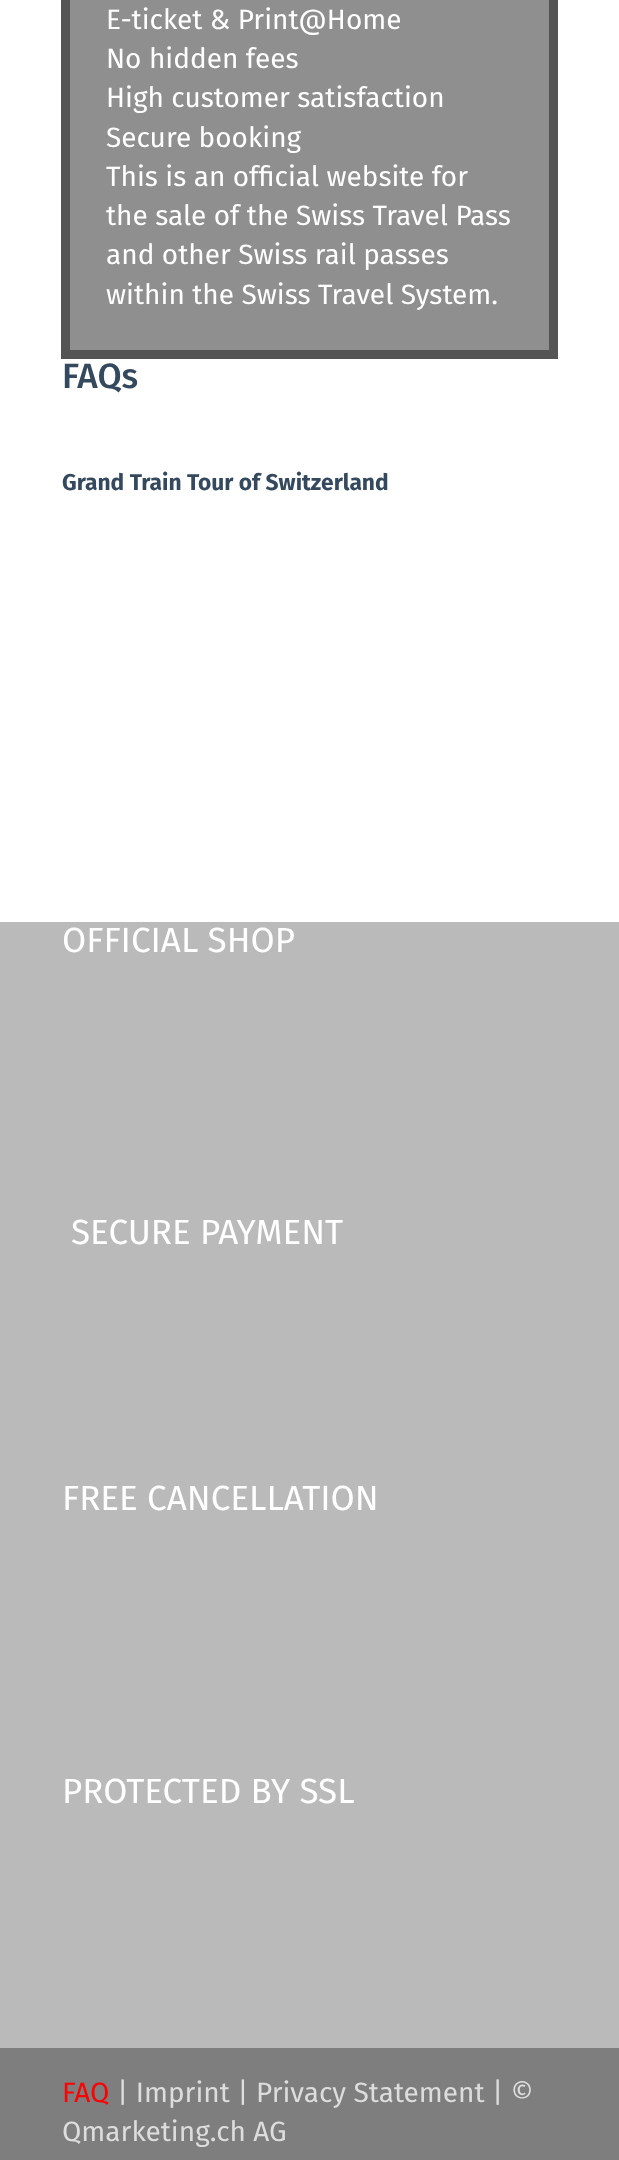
<svg xmlns="http://www.w3.org/2000/svg" width="619" height="2160">
<style>
.a{font:28px Fira Sans;fill:#fff}
.b{font:500 35px Fira Sans;fill:#34495e}
.c{font:bold 22.75px Fira Sans;fill:#34495e}
.d{font:35px Fira Sans;fill:#fff}
.e{font:28px Fira Sans;fill:#f00}
.f{font:28px Fira Sans;fill:#ddd}
</style>
<rect width="100%" height="100%" fill="#fff"/>
<path fill="#8f8f8f" stroke="#555" stroke-width="9" d="M65.5 -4.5h488v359H65.5z"/>
<path fill="#bababa" d="M0 922h619v1126H0z"/>
<path fill="#7e7e7e" d="M0 2048h619v112H0z"/>
<text class="a" x="106" y="29">E-ticket &amp; Print@Home</text>
<text class="a" x="106" y="68">No hidden fees</text>
<text class="a" x="106" y="107">High customer satisfaction</text>
<text class="a" x="106" y="147">Secure booking</text>
<text class="a" x="106" y="186">This is an official website for</text>
<text class="a" x="106" y="225">the sale of the Swiss Travel Pass</text>
<text class="a" x="106" y="264">and other Swiss rail passes</text>
<text class="a" x="106" y="304">within the Swiss Travel System.</text>
<text class="b" x="62" y="388">FAQs</text>
<text class="c" x="62" y="490">Grand Train Tour of Switzerland</text>
<text class="d" x="62" y="952">OFFICIAL SHOP</text>
<text class="d" x="71" y="1244">SECURE PAYMENT</text>
<text class="d" x="62" y="1510">FREE CANCELLATION</text>
<text class="d" x="62" y="1803">PROTECTED BY SSL</text>
<text class="e" x="62" y="2102">FAQ</text>
<text class="f" x="117" y="2102">| Imprint | Privacy Statement | ©</text>
<text class="f" x="62" y="2141">Qmarketing.ch AG</text>
</svg>
